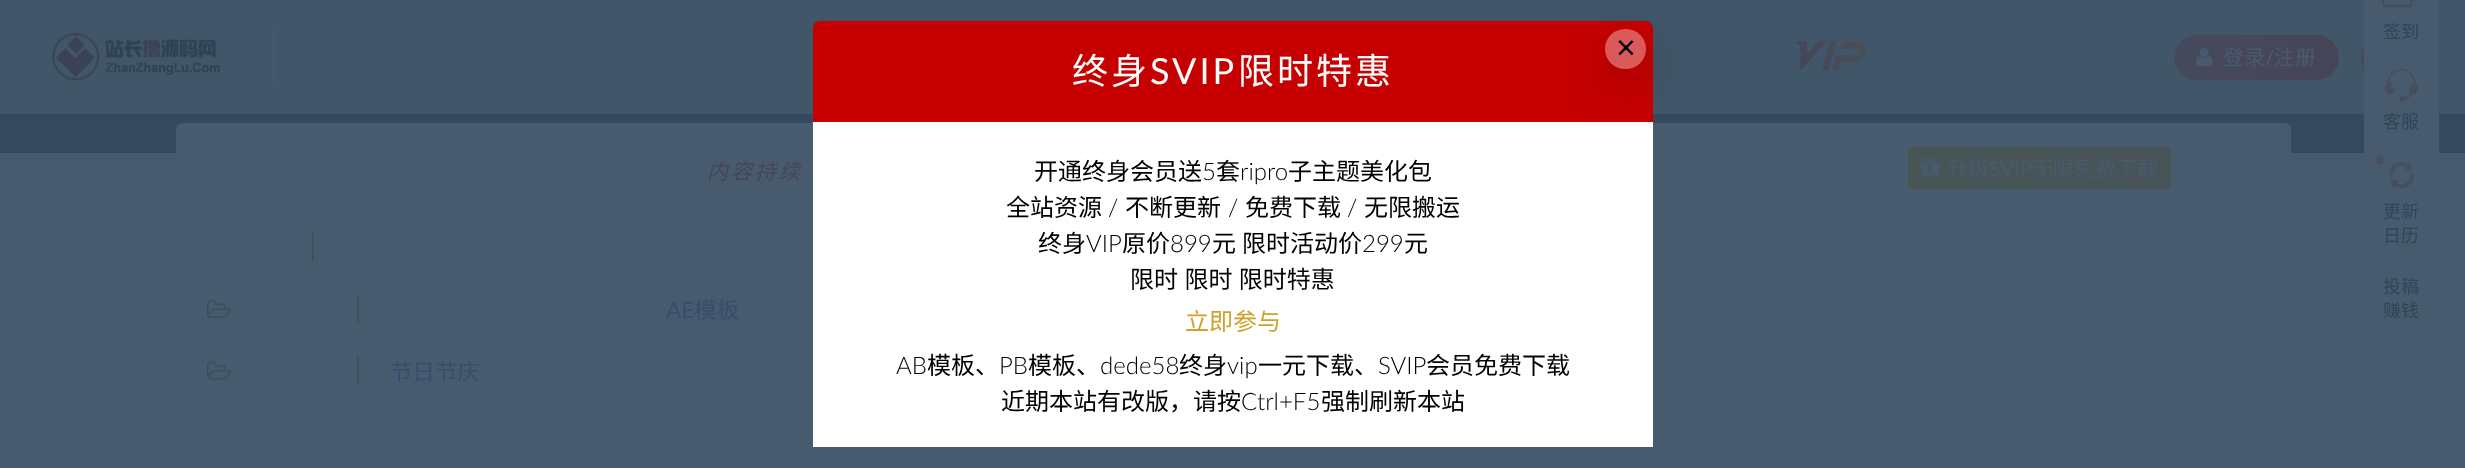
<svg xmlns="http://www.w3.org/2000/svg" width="2465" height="468">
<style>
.a{font:21px Noto Sans CJK SC;fill:#485b6e}
.b{font:21px Lato;fill:#485b6e}
.c{font:18px Noto Sans CJK SC;fill:#324558}
.d{font:italic 21px Noto Sans CJK SC;letter-spacing:3px;fill:#474558}
.e{font:22.5px Lato;fill:#354e6e}
.f{font:22.5px Noto Sans CJK SC;fill:#354e6e}
.g{font:34px Liberation Sans;fill:#000}
.h{font:36px Noto Sans CJK SC;letter-spacing:3px;fill:#fff}
.i{font:36px Lato;letter-spacing:3px;fill:#fff}
.j{font:24px Noto Sans CJK SC;fill:#000}
.k{font:300 24px Lato;fill:#000}
.l{font:24px Noto Sans CJK SC;fill:#cea22c}
</style>
<defs>
<linearGradient id="g1" gradientUnits="userSpaceOnUse" x1="2190" y1="11" x2="2322" y2="103"><stop offset="0" stop-color="#46495d"/><stop offset="1" stop-color="#474558"/></linearGradient>
<linearGradient id="g2" gradientUnits="userSpaceOnUse" x1="2358" y1="39" x2="2409" y2="75"><stop offset="0" stop-color="#46495d"/><stop offset="1" stop-color="#474558"/></linearGradient>
<linearGradient id="g3" gradientUnits="userSpaceOnUse" x1="2375" y1="156" x2="2384" y2="165"><stop offset="0.29" stop-color="#48505f"/><stop offset="1" stop-color="#474c5b"/></linearGradient>
<linearGradient id="g4" gradientUnits="userSpaceOnUse" x1="1908" y1="210" x2="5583" y2="210"><stop offset="0" stop-color="#485555"/><stop offset="0.33" stop-color="#484d5f"/><stop offset="0.67" stop-color="#484f6c"/><stop offset="1" stop-color="#485555"/></linearGradient>
<clipPath id="clip1"><path d="M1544 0h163v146h-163zm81 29h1c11 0 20 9 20 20c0 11-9 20-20 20h-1c-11 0-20-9-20-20c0-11 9-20 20-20z" clip-rule="evenodd"/></clipPath>
</defs>
<rect width="100%" height="100%" fill="#475a6d"/>
<path fill="#34495e" d="M0 114h2465v39H0z"/>
<path fill="#425669" d="M0 0h2465v114H0z"/>
<image href="1.png" x="52" y="33" width="169" height="48"/>
<path fill="#46596c" d="M273 29h2v57H273z"/>
<image href="2.png" x="474" y="56" width="10" height="6"/>
<image href="2.png" x="621" y="56" width="10" height="6"/>
<image href="2.png" x="792" y="56" width="10" height="6"/>
<image href="3.png" x="1733" y="56" width="10" height="6"/>
<image href="4.png" x="1797" y="41" width="70" height="31"/>
<rect fill="url(#g1)" x="2174" y="35" width="165" height="45" rx="22.5"/>
<image href="5.png" x="2196" y="48" width="17" height="18"/>
<circle fill="url(#g2)" cx="2383.5" cy="57.5" r="22.5"/>
<rect fill="#485b6e" x="2364" y="-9" width="75" height="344" rx="9"/>
<image href="6.png" x="2382" y="0" width="31" height="8"/>
<image href="7.png" x="2385" y="68" width="33" height="34"/>
<circle fill="url(#g3)" cx="2379.5" cy="160.5" r="4.5"/>
<image href="8.png" x="2389" y="161" width="25" height="28"/>
<rect fill="#485b6e" x="176" y="123" width="2115" height="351" rx="6"/>
<rect fill="url(#g4)" x="1908" y="147" width="263" height="42" rx="6"/>
<image href="9.png" x="1920" y="157" width="21" height="19"/>
<path fill="#3c4f61" d="M313.5 232.5v30l-1.5-1.5v-27z"/>
<path fill="#3c4f61" d="M358.5 294v30l-1.5-1.5v-27z"/>
<image href="10.png" x="207" y="300" width="24" height="18"/>
<path fill="#3c4f61" d="M358.5 355.5v30l-1.5-1.5v-27z"/>
<image href="11.png" x="207" y="361" width="24" height="19"/>
<rect fill="#d00" x="813" y="21" width="840" height="426" rx="8"/>
<path fill="#0000001a" d="M818 21h830c3 0 5 2 5 5v96h-840v-96c0-3 2-5 5-5z"/>
<path fill="#fff" d="M813 122h840v325H813z"/>
<g clip-path="url(#clip1)">
<rect fill="#00000080" filter="blur(22.5px)" x="1613" y="51" width="25" height="26" rx="12.5"/>
</g>
<rect fill="#ffffff59" x="1605" y="29" width="41" height="40" rx="20"/>
<text class="a" x="2223" y="65">登录</text>
<text class="b" x="2265" y="65">/</text>
<text class="a" x="2274" y="65">注册</text>
<text class="c" x="2383" y="38">签到</text>
<text class="c" x="2383" y="128">客服</text>
<text class="c" x="2383" y="218">更新</text>
<text class="c" x="2383" y="242">日历</text>
<text class="c" x="2383" y="293">投稿</text>
<text class="c" x="2383" y="317">赚钱</text>
<text class="d" x="707" y="179">内容持续</text>
<text class="a" x="1947" y="176">升级</text>
<text class="b" x="1989" y="176">SVIP</text>
<text class="a" x="2032" y="176">无限免费下载</text>
<text class="e" x="666" y="318">AE</text>
<text class="f" x="694" y="318">模板</text>
<text class="f" x="390" y="380">节日节庆</text>
<text class="g" x="1616" y="59">×</text>
<text class="h" x="1072" y="84">终身</text>
<text class="i" x="1150" y="84">SVIP</text>
<text class="h" x="1238" y="84">限时特惠</text>
<text class="j" x="1034" y="180">开通终身会员送</text>
<text class="k" x="1202" y="180">5</text>
<text class="j" x="1216" y="180">套</text>
<text class="k" x="1240" y="180">ripro</text>
<text class="j" x="1288" y="180">子主题美化包</text>
<text class="j" x="1006" y="216">全站资源</text>
<text class="k" x="1108" y="216">/</text>
<text class="j" x="1125" y="216">不断更新</text>
<text class="k" x="1228" y="216">/</text>
<text class="j" x="1245" y="216">免费下载</text>
<text class="k" x="1347" y="216">/</text>
<text class="j" x="1364" y="216">无限搬运</text>
<text class="j" x="1038" y="252">终身</text>
<text class="k" x="1086" y="252">VIP</text>
<text class="j" x="1122" y="252">原价</text>
<text class="k" x="1170" y="252">899</text>
<text class="j" x="1212" y="252">元</text>
<text class="j" x="1242" y="252">限时活动价</text>
<text class="k" x="1362" y="252">299</text>
<text class="j" x="1404" y="252">元</text>
<text class="j" x="1130" y="288" word-spacing="1">限时 限时 限时特惠</text>
<text class="l" x="1185" y="330">立即参与</text>
<text class="k" x="896" y="374">AB</text>
<text class="j" x="927" y="374">模板、</text>
<text class="k" x="999" y="374">PB</text>
<text class="j" x="1028" y="374">模板、</text>
<text class="k" x="1100" y="374">dede58</text>
<text class="j" x="1179" y="374">终身</text>
<text class="k" x="1227" y="374">vip</text>
<text class="j" x="1258" y="374">一元下载、</text>
<text class="k" x="1378" y="374">SVIP</text>
<text class="j" x="1426" y="374">会员免费下载</text>
<text class="j" x="1001" y="410">近期本站有改版，请按</text>
<text class="k" x="1241" y="410">Ctrl+F5</text>
<text class="j" x="1321" y="410">强制刷新本站</text>
</svg>
